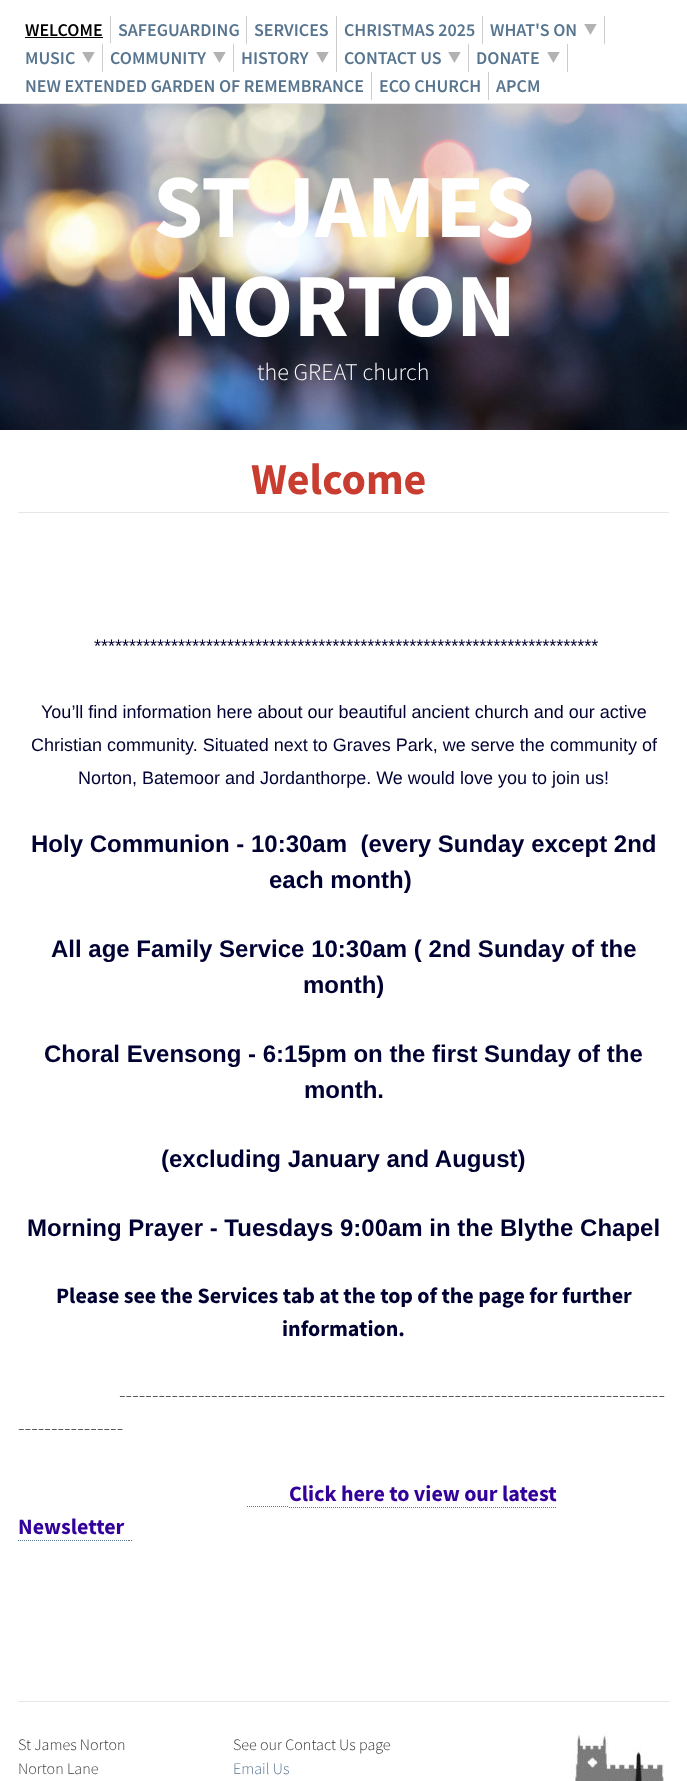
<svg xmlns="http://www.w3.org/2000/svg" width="687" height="1781">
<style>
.a{font:600 18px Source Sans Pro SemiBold;fill:#000}
.b{font:600 18px Source Sans Pro SemiBold;fill:#587590}
.c{font:bold 90px Source Sans Pro;fill:#fff}
.d{font:300 24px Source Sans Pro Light;fill:#fff}
.e{font:bold 44px Source Sans Pro;fill:#c83d30}
.f{font:18px Liberation Sans;fill:#003}
.g{font:bold 24px Liberation Sans;fill:#003}
.h{font:bold 22px Source Sans Pro;fill:#003}
.i{font:300 22px Source Sans Pro Light;fill:#3d3d3d}
.j{font:bold 22px Source Sans Pro;fill:#309}
.k{font:300 16px Source Sans Pro Light;fill:#333}
.l{font:300 16px Source Sans Pro Light;fill:#3d3d3d}
.m{font:300 16px Source Sans Pro Light;fill:#587590}
</style>
<rect width="100%" height="100%" fill="#fff"/>
<path fill="#e6e6e6" d="M0 103h687v1H0z"/>
<path fill="#ccc" d="M110 16h1v27H110z"/>
<path fill="#000" d="M25 37h78v1H25z"/>
<path fill="#ccc" d="M246 16h1v28H246z"/>
<path fill="#ccc" d="M336 16h1v56H336z"/>
<path fill="#ccc" d="M482 16h1v28H482z"/>
<path fill="#ccc" d="M604 16h1v28H604z"/>
<image href="1.png" x="584" y="24" width="13" height="11"/>
<path fill="#ccc" d="M102 44h1v28H102z"/>
<image href="1.png" x="82" y="52" width="13" height="11"/>
<path fill="#ccc" d="M233 44h1v28H233z"/>
<image href="1.png" x="213" y="52" width="13" height="11"/>
<image href="1.png" x="316" y="52" width="13" height="11"/>
<path fill="#ccc" d="M468 44h1v28H468z"/>
<image href="1.png" x="448" y="52" width="13" height="11"/>
<path fill="#ccc" d="M567 44h1v28H567z"/>
<image href="1.png" x="547" y="52" width="13" height="11"/>
<path fill="#ccc" d="M371 72h1v28H371z"/>
<path fill="#ccc" d="M488 72h1v28H488z"/>
<image href="2.png" x="0" y="104" width="687" height="326"/>
<path fill="#e6e6e6" d="M18 512h651v1H18z"/>
<path fill="none" stroke="#587590" stroke-dasharray="1 1" d="M247 1506.5h12m0 0h18"/>
<path fill="none" stroke="#587590" d="M277 1506.5h1m1 0h1m1 0h1m1 0h1m1 0h1m1 0h1"/>
<path fill="none" stroke="#587590" stroke-dasharray="1 1" d="M289 1507.5h268"/>
<path fill="none" stroke="#587590" stroke-dasharray="1 1" d="M18 1540.5h106"/>
<path fill="none" stroke="#587590" d="M124 1540.5h1m1 0h1m1 0h1m0 0h1m1 0h1"/>
<path fill="#e6e6e6" d="M18 1701h651v1H18z"/>
<image href="3.png" x="571" y="1732" width="94" height="49"/>
<text class="a" x="25" y="36">WELCOME</text>
<text class="b" x="118" y="36">SAFEGUARDING</text>
<text class="b" x="254" y="36">SERVICES</text>
<text class="b" x="344" y="36">CHRISTMAS 2025</text>
<text class="b" x="490" y="36">WHAT'S ON</text>
<text class="b" x="25" y="64">MUSIC</text>
<text class="b" x="110" y="64">COMMUNITY</text>
<text class="b" x="241" y="64">HISTORY</text>
<text class="b" x="344" y="64">CONTACT US</text>
<text class="b" x="476" y="64">DONATE</text>
<text class="b" x="25" y="92">NEW EXTENDED GARDEN OF REMEMBRANCE</text>
<text class="b" x="379" y="92">ECO CHURCH</text>
<text class="b" x="496" y="92">APCM</text>
<text class="c" x="153" y="237">ST JAMES</text>
<text class="c" x="172" y="336">NORTON</text>
<text class="d" x="257" y="380">the GREAT church</text>
<text class="e" x="251" y="494">Welcome</text>
<text class="f" x="94" y="652">************************************************************************</text>
<text class="f" x="41" y="718">You’ll find information here about our beautiful ancient church and our active</text>
<text class="f" x="31" y="751">Christian community. Situated next to Graves Park, we serve the community of</text>
<text class="f" x="78" y="784">Norton, Batemoor and Jordanthorpe. We would love you to join us!</text>
<text class="g" xml:space="preserve" x="31" y="852">Holy Communion - 10:30am  (every Sunday except 2nd</text>
<text class="g" x="269" y="888">each month)</text>
<text class="g" x="51" y="957">All age Family Service 10:30am ( 2nd Sunday of the</text>
<text class="g" x="303" y="993">month)</text>
<text class="g" x="44" y="1062">Choral Evensong - 6:15pm on the first Sunday of the</text>
<text class="g" x="304" y="1098">month.</text>
<text class="g" x="161" y="1167">(excluding January and August)</text>
<text class="g" x="27" y="1236">Morning Prayer - Tuesdays 9:00am in the Blythe Chapel</text>
<text class="h" x="56" y="1303">Please see the Services tab at the top of the page for further</text>
<text class="h" x="282" y="1336">information.</text>
<text class="i" x="119" y="1402">-----------------------------------------------------------------------------------</text>
<text class="i" x="18" y="1435">----------------</text>
<text class="j" x="289" y="1501">Click here to view our latest</text>
<text class="j" x="18" y="1534">Newsletter</text>
<text class="k" x="18" y="1750">St James Norton</text>
<text class="l" x="18" y="1774">Norton Lane</text>
<text class="k" x="233" y="1750">See our Contact Us page</text>
<text class="m" x="233" y="1774">Email Us</text>
</svg>
